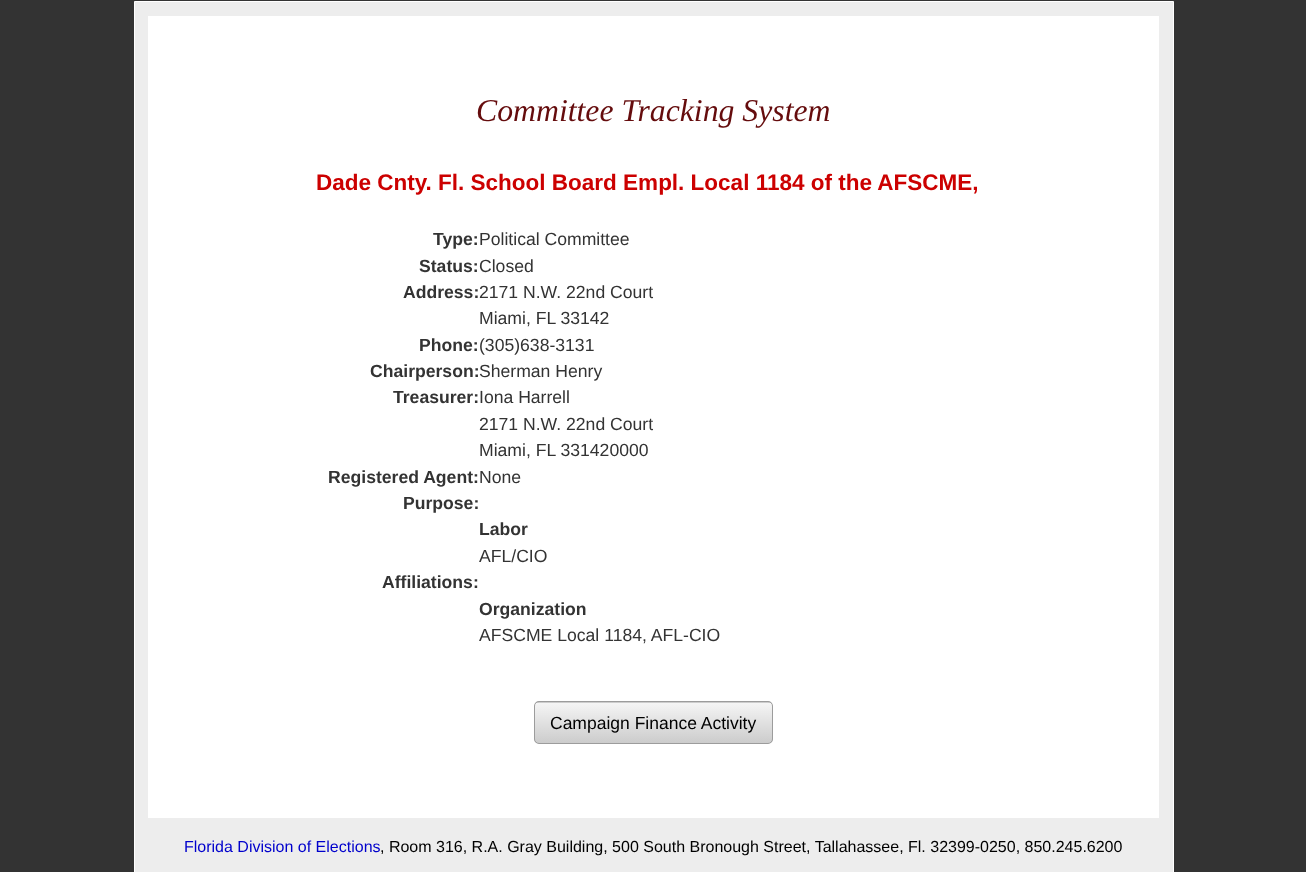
<svg xmlns="http://www.w3.org/2000/svg" width="1306" height="872">
<style>
.a{font:italic 31.75px Liberation Serif;fill:#650c0d}
.b{font:bold 22.5px Liberation Sans;fill:#c00}
.c{font:bold 17.6px Liberation Sans;fill:#333}
.d{font:17.6px Liberation Sans;fill:#333}
.e{font:17.5px Liberation Sans;fill:#000}
.f{font:16px Liberation Sans;fill:#00c}
.g{font:16px Liberation Sans;fill:#000}
</style>
<defs>
<clipPath id="clip1"><rect x="534" y="701" width="239" height="43" rx="5"/></clipPath>
<linearGradient id="g1" gradientUnits="userSpaceOnUse" x1="653" y1="663" x2="653" y2="703"><stop offset="0" stop-color="#f5f5f5"/><stop offset="1" stop-color="#ccc"/></linearGradient>
<linearGradient id="g2" gradientUnits="userSpaceOnUse" x1="653" y1="703" x2="653" y2="743"><stop offset="0" stop-color="#f5f5f5"/><stop offset="1" stop-color="#ccc"/></linearGradient>
</defs>
<rect width="100%" height="100%" fill="#333"/>
<path fill="#ededed" stroke="#fff" d="M134.5 1.5h1039v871H134.5z"/>
<path fill="#fff" d="M148 16h1011v802H148z"/>
<g clip-path="url(#clip1)">
<path fill="url(#g1)" d="M534 701h239v2H534z"/>
<path fill="url(#g2)" d="M534 703h239v40H534z"/>
</g>
<rect fill="none" stroke="#9c9c9c" x="534.5" y="701.5" width="238" height="42" rx="4.5"/>
<text class="a" x="476" y="121">Committee Tracking System</text>
<text class="b" x="316" y="190">Dade Cnty. Fl. School Board Empl. Local 1184 of the AFSCME,</text>
<text class="c" x="433" y="245">Type:</text>
<text class="d" x="479" y="245">Political Committee</text>
<text class="c" x="419" y="272">Status:</text>
<text class="d" x="479" y="272">Closed</text>
<text class="c" x="403" y="298">Address:</text>
<text class="d" x="479" y="298">2171 N.W. 22nd Court</text>
<text class="d" x="479" y="324">Miami, FL 33142</text>
<text class="c" x="419" y="351">Phone:</text>
<text class="d" x="479" y="351">(305)638-3131</text>
<text class="c" x="370" y="377">Chairperson:</text>
<text class="d" x="479" y="377">Sherman Henry</text>
<text class="c" x="393" y="403">Treasurer:</text>
<text class="d" x="479" y="403">Iona Harrell</text>
<text class="d" x="479" y="430">2171 N.W. 22nd Court</text>
<text class="d" x="479" y="456">Miami, FL 331420000</text>
<text class="c" x="328" y="483">Registered Agent:</text>
<text class="d" x="479" y="483">None</text>
<text class="c" x="403" y="509">Purpose:</text>
<text class="c" x="479" y="535">Labor</text>
<text class="d" x="479" y="562">AFL/CIO</text>
<text class="c" x="382" y="588">Affiliations:</text>
<text class="c" x="479" y="615">Organization</text>
<text class="d" x="479" y="641">AFSCME Local 1184, AFL-CIO</text>
<text class="e" x="550" y="729">Campaign Finance Activity</text>
<text class="f" x="184" y="852">Florida Division of Elections</text>
<text class="g" x="380" y="852">, Room 316, R.A. Gray Building, 500 South Bronough Street, Tallahassee, Fl. 32399-0250, 850.245.6200</text>
</svg>
